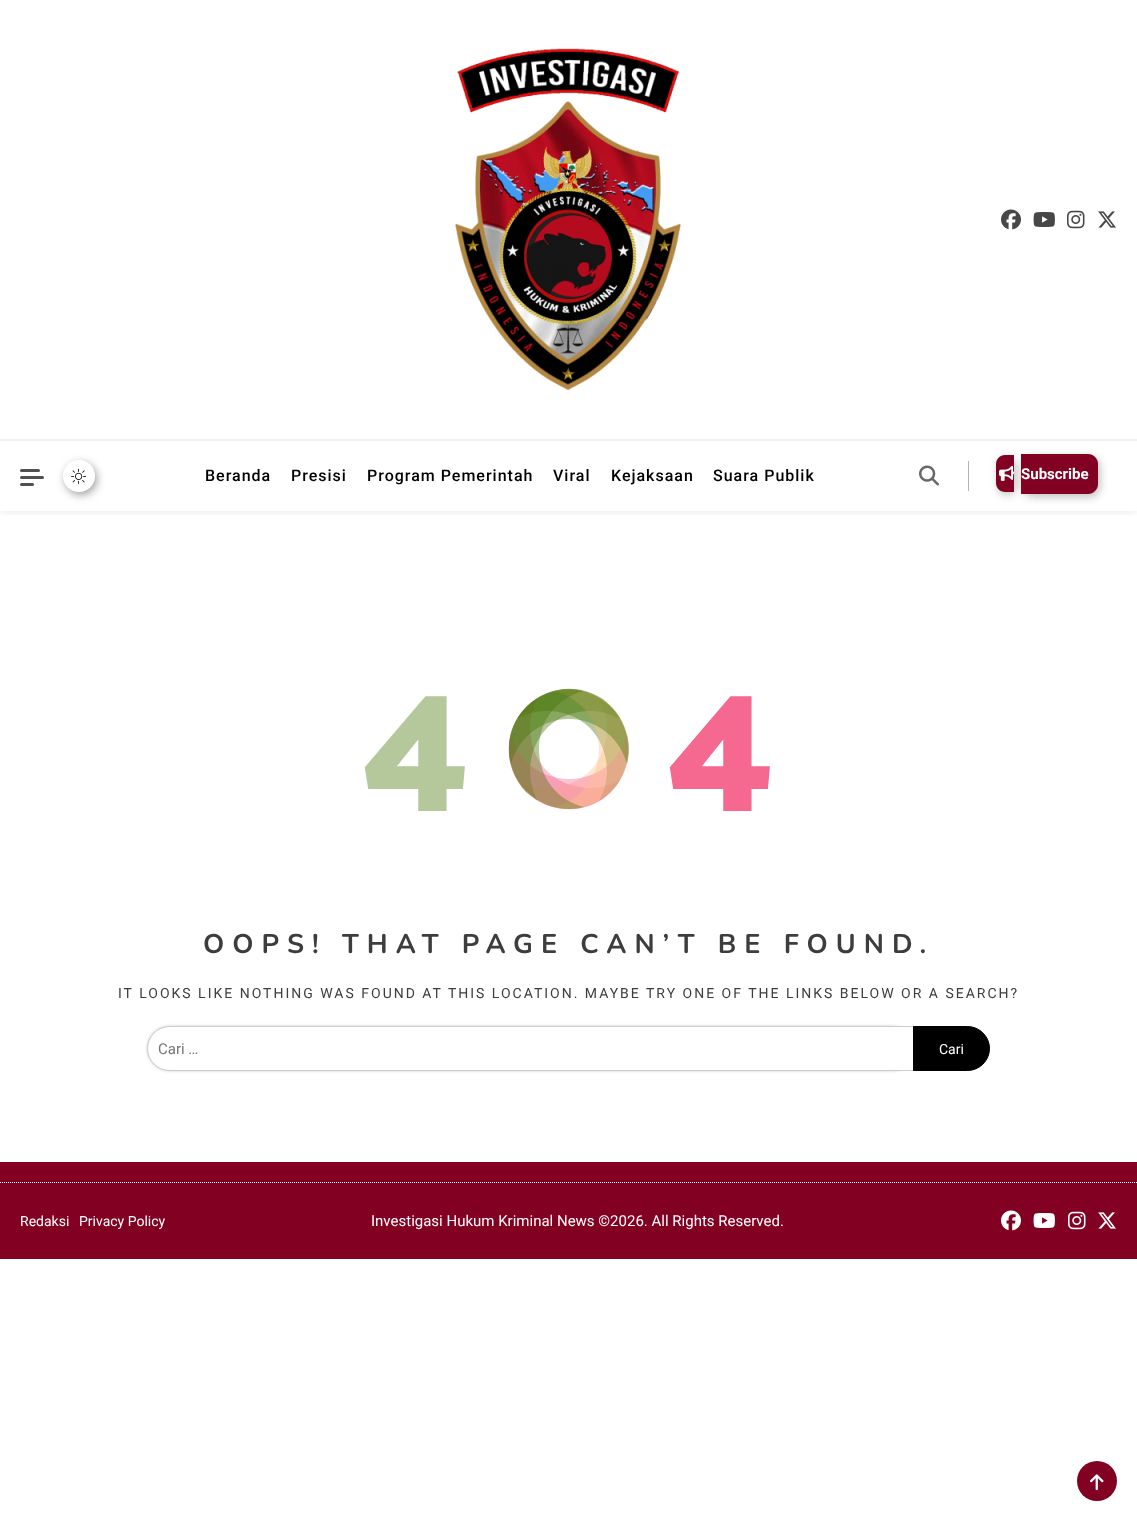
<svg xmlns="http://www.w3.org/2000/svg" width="1137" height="1521">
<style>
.a{font:500 16px Roboto;letter-spacing:1px;fill:#000}
.b{font:bold 15px Roboto;fill:#fff}
.c{font:800 180px Catamaran;fill:#b5c89c}
.d{font:800 180px Catamaran;fill:#f56991}
.e{font:bold 27px Nunito;letter-spacing:8px;fill:#3d3d3d}
.f{font:14px Roboto;letter-spacing:2px;fill:#3d3d3d}
.g{font:15px Roboto;fill:#757575}
.h{font:14px Roboto;fill:#fff}
.i{font:15px Roboto;fill:#fff}
</style>
<defs>
<clipPath id="clip1"><path d="M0 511h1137v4H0z"/></clipPath>
<clipPath id="clip2"><path d="M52 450h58v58h-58zm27 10c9 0 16 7 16 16c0 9-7 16-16 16c-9 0-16-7-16-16c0-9 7-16 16-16z" clip-rule="evenodd"/></clipPath>
</defs>
<rect width="100%" height="100%" fill="#fff"/>
<g clip-path="url(#clip1)">
<path fill="#0000001a" filter="blur(5px)" d="M0 0h1137v511H0z"/>
</g>
<image href="1.png" x="455" y="48" width="226" height="343"/>
<image href="2.png" x="1001" y="209" width="20" height="21"/>
<image href="3.png" x="1033" y="212" width="22" height="15"/>
<image href="4.png" x="1067" y="210" width="18" height="19"/>
<image href="5.png" x="1098" y="211" width="18" height="17"/>
<path fill="#efefef" d="M0 439h1137v2H0z"/>
<rect fill="#505050" x="20" y="469" width="20" height="3" rx="1.5"/>
<rect fill="#505050" x="20" y="476" width="24" height="3" rx="1.5"/>
<rect fill="#505050" x="20" y="483" width="14" height="3" rx="1.5"/>
<g clip-path="url(#clip2)">
<rect fill="#0000005e" filter="blur(4px)" x="65" y="463" width="32" height="32" rx="16"/>
</g>
<image href="6.png" x="71" y="468" width="16" height="16"/>
<image href="7.png" x="919" y="465" width="20" height="21"/>
<path fill="#b3b3b3" d="M968 461h1v30H968z"/>
<rect fill="#00000040" filter="blur(4px)" x="998" y="458" width="18" height="37" rx="9"/>
<path fill="#820022" d="M1005 455h9v37h-9c-5 0-9-4-9-9v-19c0-5 4-9 9-9z"/>
<rect fill="#00000040" filter="blur(4px)" x="1023" y="457" width="77" height="40" rx="10"/>
<path fill="#820022" d="M1021 454h67c5.5 0 10 4.5 10 10v20c0 5.5-4.5 10-10 10h-67z"/>
<image href="8.png" x="999" y="465" width="15" height="16"/>
<path fill="#fbc3d3" d="M620 780c-23 13-53 10-73-9c-19-20-22-51-9-73c-42 25-38 88 8 107c11 4 23 5 34 3c17-3 31-13 40-28z"/>
<path fill="#ffc48c66" d="M611 707c-4-4-8-7-12-9c13 22 10 53-9 73c-20 19-50 22-73 9c3 4 6 8 9 12c24 23 61 23 85 0c23-24 23-62 0-85z"/>
<path fill="#46750766" d="M590 728c19 20 22 50 9 73c15-9 25-24 28-40c3-12 1-24-3-34c-19-46-82-50-107-8c23-13 53-10 73 9z"/>
<path fill="#46750766" d="M611 707c-24-24-61-24-85 0c-23 23-23 61 0 85c4 3 8 6 12 9c-13-23-10-53 9-73c20-19 50-22 73-9c-2-4-5-8-9-12z"/>
<path fill="#f5699166" d="M511 734c-14 52 45 96 92 65c9-7 17-16 21-27c5-12 6-25 3-38c-15 60-101 60-116 0z"/>
<path fill="#ffc48c66" d="M569 689c-5 0-10 1-15 2c60 15 60 101 0 116c5 1 10 2 15 2c33 0 60-27 60-60c0-33-27-60-60-60z"/>
<path fill="#46750766" d="M569 719c28 0 51 19 58 45c3-13 2-26-3-38c-4-11-12-20-21-27c-47-31-106 13-92 65c7-26 30-45 58-45z"/>
<path fill="#46750766" d="M569 689c-33 0-60 27-60 60c0 33 27 60 60 60c5 0 10-1 15-2c-60-15-60-101 0-116c-5-1-10-2-15-2z"/>
<rect fill="#05050530" filter="blur(1.5px)" x="147" y="1026" width="768" height="45" rx="22.5"/>
<path fill="#fff" stroke="#ccc" d="M169.5 1026.5h745v44h-745c-12 0-22-10-22-22c0-12 10-22 22-22z"/>
<path fill="#000" stroke="#000" d="M913.5 1026.5h54c12 0 22 10 22 22c0 12-10 22-22 22h-54z"/>
<path fill="#820022" d="M0 1162h1137v97H0z"/>
<path fill="none" stroke="#fff" stroke-dasharray="1 1" d="M0 1182.5h1137"/>
<image href="9.png" x="1001" y="1210" width="20" height="21"/>
<image href="10.png" x="1033" y="1213" width="22" height="15"/>
<image href="11.png" x="1068" y="1211" width="18" height="19"/>
<image href="12.png" x="1098" y="1212" width="18" height="17"/>
<circle fill="#820022" cx="1097" cy="1481" r="20"/>
<image href="13.png" x="1090" y="1474" width="14" height="17"/>
<text class="a" x="205" y="481">Beranda</text>
<text class="a" x="291" y="481">Presisi</text>
<text class="a" x="367" y="481">Program Pemerintah</text>
<text class="a" x="553" y="481">Viral</text>
<text class="a" x="611" y="481">Kejaksaan</text>
<text class="a" x="713" y="481">Suara Publik</text>
<text class="b" x="1021" y="479">Subscribe</text>
<text class="c" x="363" y="799">4</text>
<text class="d" x="668" y="799">4</text>
<text class="e" x="203" y="953">OOPS! THAT PAGE CAN’T BE FOUND.</text>
<text class="f" x="118" y="998">IT LOOKS LIKE NOTHING WAS FOUND AT THIS LOCATION. MAYBE TRY ONE OF THE LINKS BELOW OR A SEARCH?</text>
<text class="g" x="158" y="1054">Cari …</text>
<text class="h" x="939" y="1054">Cari</text>
<text class="h" x="20" y="1226">Redaksi</text>
<text class="h" x="79" y="1226">Privacy Policy</text>
<text class="i" x="371" y="1226">Investigasi Hukum Kriminal News ©2026. All Rights Reserved.</text>
</svg>
